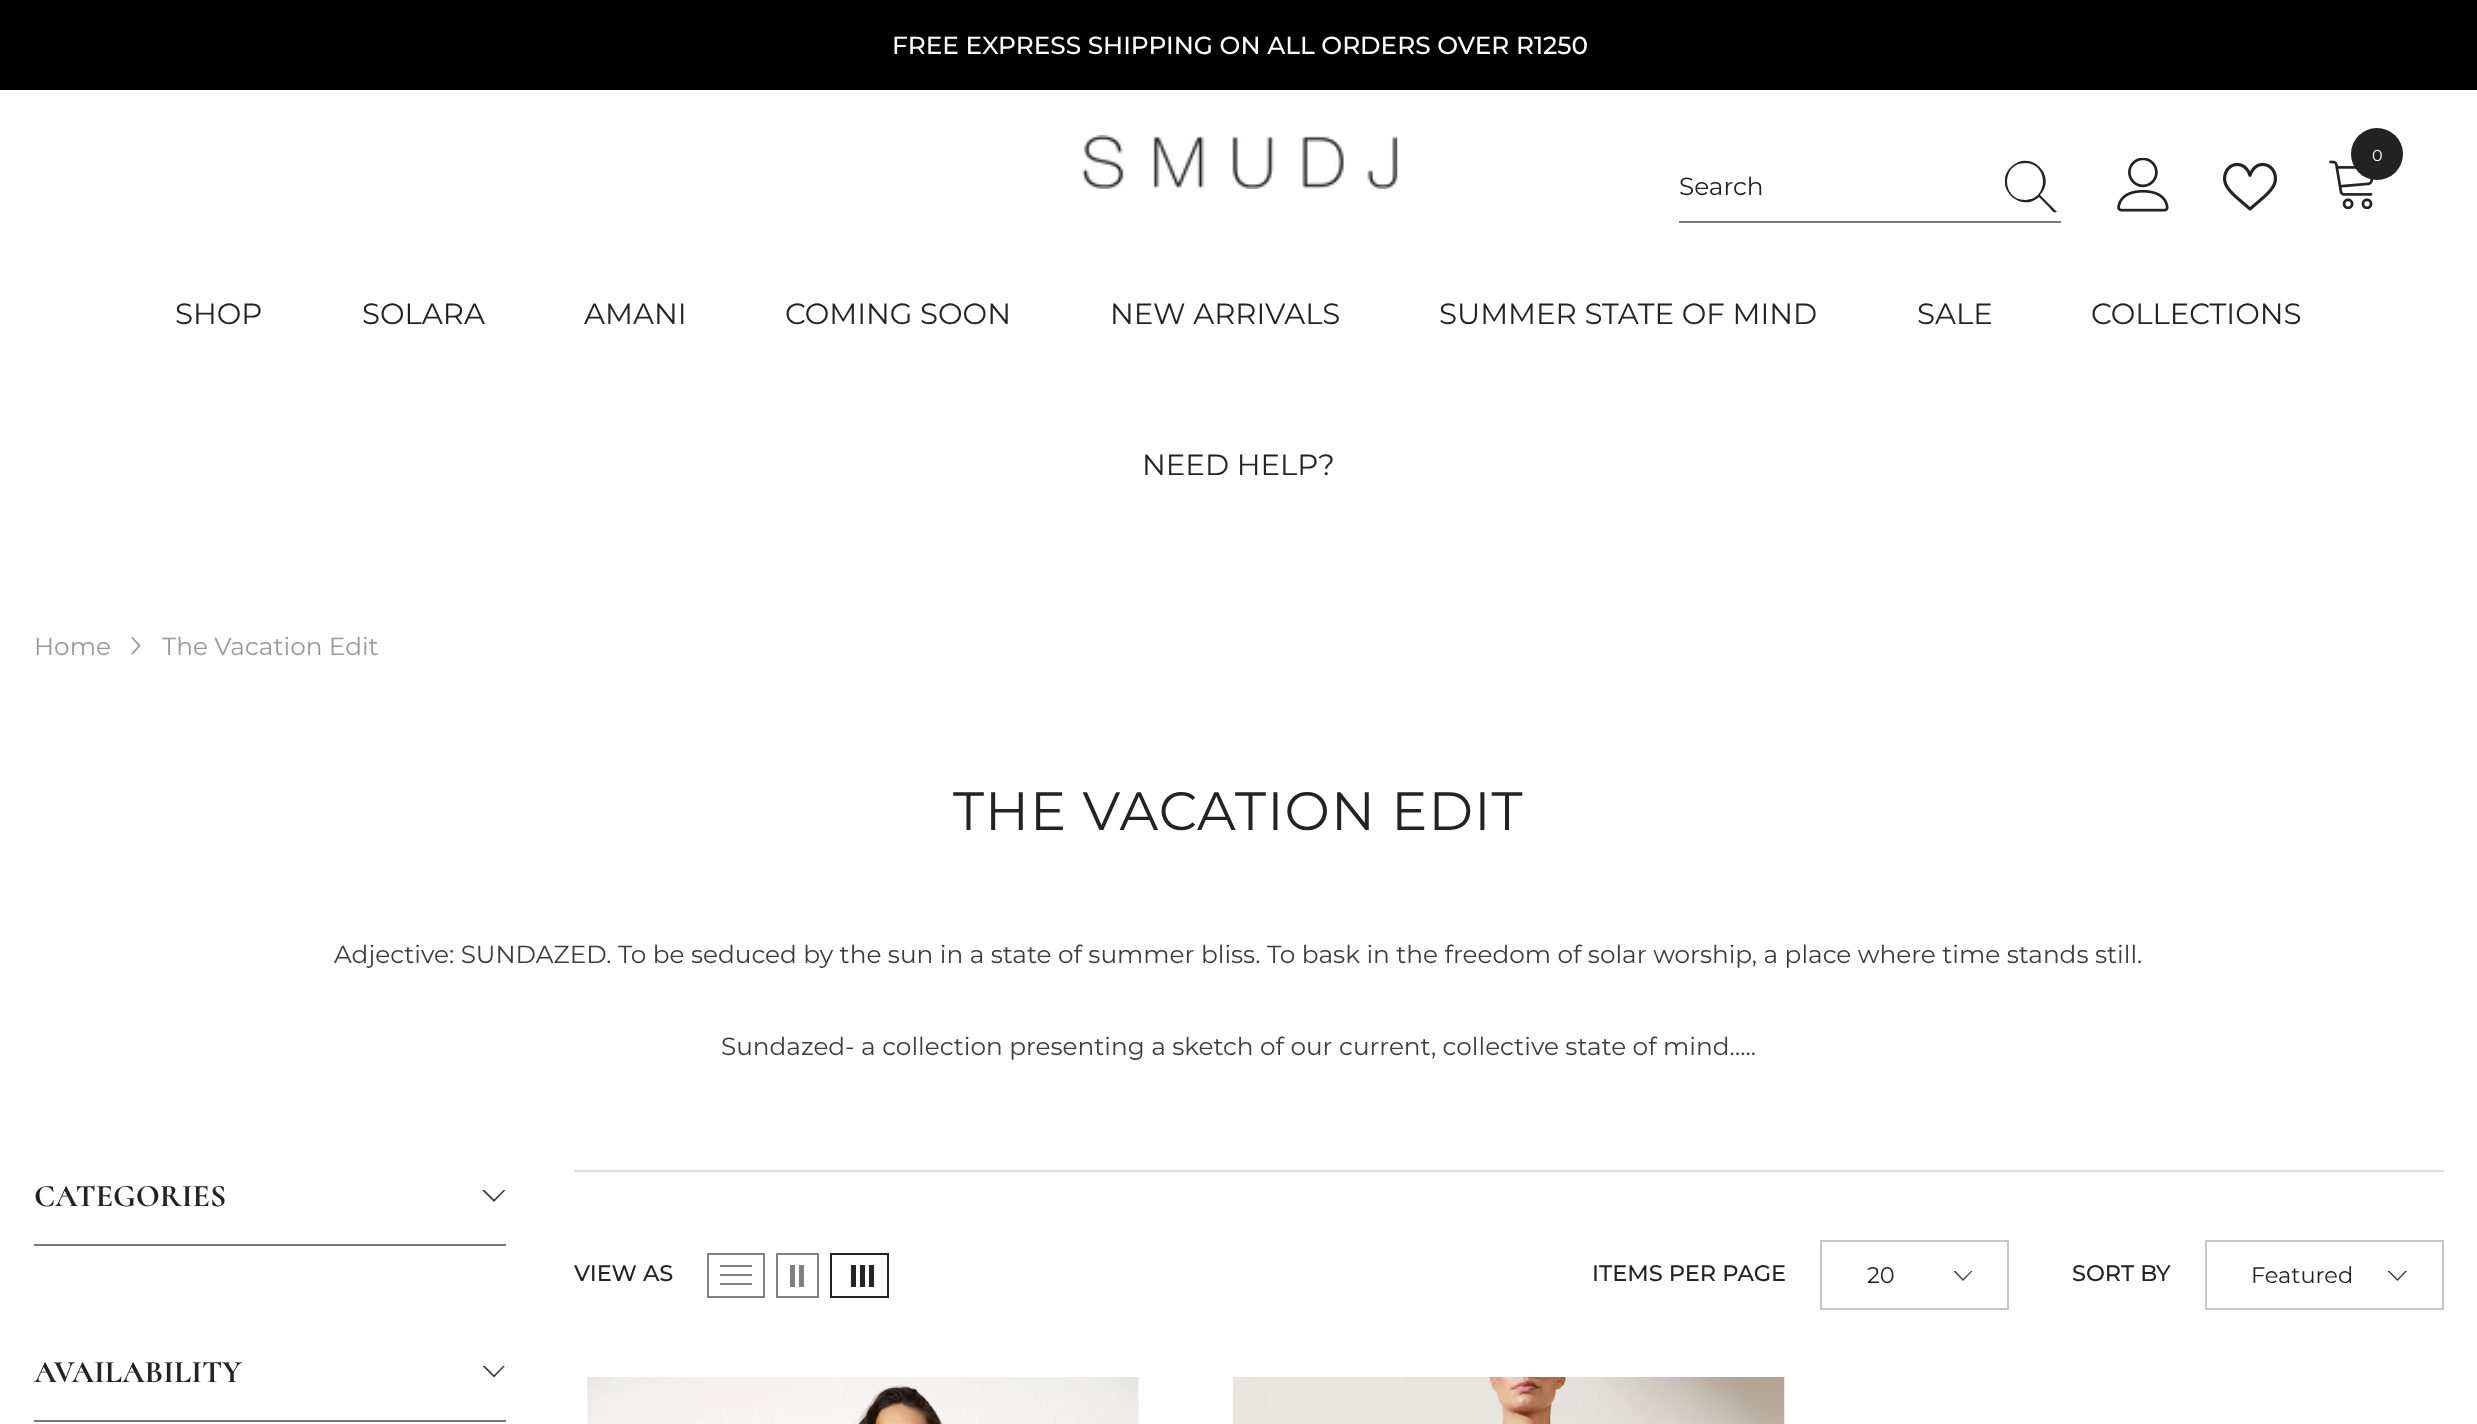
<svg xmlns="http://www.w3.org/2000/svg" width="2477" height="1424">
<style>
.a{font:500 24.75px Montserrat;fill:#fff}
.b{font:100 16px Montserrat;fill:#fff}
.c{font:100 24.75px Montserrat;fill:#232323}
.d{font:100 29.25px Montserrat;fill:#232323}
.e{font:100 24.75px Montserrat;fill:#999}
.f{font:100 54px Montserrat;letter-spacing:1.1px;fill:#232323}
.g{font:100 24.75px Montserrat;fill:#3c3c3c}
.h{font:bold 31.5px Cormorant;fill:#232323}
.i{font:500 22.5px Montserrat;fill:#232323}
.j{font:100 22.5px Montserrat;fill:#232323}
</style>
<defs>
<clipPath id="clip1"><path d="M2005 160h52v54H2005z"/></clipPath>
<clipPath id="clip2"><path d="M482 1190h24v14H482z"/></clipPath>
<clipPath id="clip3"><path d="M482 1366h24v13H482z"/></clipPath>
<clipPath id="clip4"><path d="M1953 1271h20v12H1953z"/></clipPath>
<clipPath id="clip5"><path d="M2387 1271h21v12H2387z"/></clipPath>
</defs>
<rect width="100%" height="100%" fill="#fff"/>
<path fill="#000" d="M0 0h2477v90H0z"/>
<image href="1.png" x="1082" y="135" width="316" height="54"/>
<image href="2.png" x="2329" y="160" width="45" height="49"/>
<circle fill="#232323" cx="2377" cy="154" r="26"/>
<image href="3.png" x="2117" y="158" width="52" height="54"/>
<image href="4.png" x="2223" y="162" width="54" height="49"/>
<path fill="#7b7b7b" d="M1679 221h382v2H1679z"/>
<g clip-path="url(#clip1)">
<path fill="#232323" d="M2056 211l-16-16c18-19-10-47-29-28c-19 19 9 47 28 30l10 10c1 1 5 7 7 5c1 0 1-1 0-1zm-31-11c-24 0-24-37 0-37c24 0 24 37 0 37z"/>
</g>
<image href="5.png" x="131" y="636" width="10" height="19"/>
<path fill="#787878" d="M34 1244h472v2H34z"/>
<g clip-path="url(#clip2)">
<path fill="#3c3c3c" d="M494 1199.5l-10-10h-2.5l12.5 12.5l12-12.5h-2z"/>
</g>
<path fill="#787878" d="M34 1420h472v2H34z"/>
<g clip-path="url(#clip3)">
<path fill="#3c3c3c" d="M494 1375l-10-10h-2.5l12.5 12.5l12-12.5h-2z"/>
</g>
<path fill="#dedede" d="M574 1170h1870v2H574z"/>
<path fill="none" stroke="#808080" stroke-width="2" d="M708 1254h56v43H708z"/>
<path fill="#808080" d="M720 1283h32v2H720z"/>
<path fill="#808080" d="M720 1274h32v2H720z"/>
<path fill="#808080" d="M720 1265h32v2H720z"/>
<path fill="none" stroke="#808080" stroke-width="2" d="M777 1254h41v43H777z"/>
<path fill="#808080" d="M799 1265h5v22H799z"/>
<path fill="#808080" d="M790 1265h5v22H790z"/>
<path fill="none" stroke="#232323" stroke-width="2" d="M831 1254h57v43H831z"/>
<path fill="#232323" d="M869 1265h5v22H869z"/>
<path fill="#232323" d="M860 1265h5v22H860z"/>
<path fill="#232323" d="M851 1265h5v22H851z"/>
<path fill="none" stroke="#c7c7c7" stroke-width="2" d="M1821 1241h187v68H1821z"/>
<g clip-path="url(#clip4)">
<path fill="#3c3c3c" d="M1963 1279l-8-8.5h-2l10 10.5l10-10.5h-1.5z"/>
</g>
<path fill="none" stroke="#c7c7c7" stroke-width="2" d="M2206 1241h237v68H2206z"/>
<g clip-path="url(#clip5)">
<path fill="#3c3c3c" d="M2397.5 1279l-8.5-8.5h-2l10.5 10.5l10-10.5h-2z"/>
</g>
<image href="6.png" x="587" y="1377" width="552" height="47"/>
<image href="7.png" x="1233" y="1377" width="552" height="47"/>
<text class="a" x="892" y="54">FREE EXPRESS SHIPPING ON ALL ORDERS OVER R1250</text>
<text class="b" x="2372" y="161">0</text>
<text class="c" x="1679" y="195">Search</text>
<text class="d" x="175" y="324">SHOP</text>
<text class="d" x="362" y="324">SOLARA</text>
<text class="d" x="584" y="324">AMANI</text>
<text class="d" x="785" y="324">COMING SOON</text>
<text class="d" x="1110" y="324">NEW ARRIVALS</text>
<text class="d" x="1439" y="324">SUMMER STATE OF MIND</text>
<text class="d" x="1917" y="324">SALE</text>
<text class="d" x="2091" y="324">COLLECTIONS</text>
<text class="d" x="1142" y="475">NEED HELP?</text>
<text class="e" x="34" y="655">Home</text>
<text class="e" x="162" y="655">The Vacation Edit</text>
<text class="f" x="953" y="830">THE VACATION EDIT</text>
<text class="g" x="334" y="963">Adjective: SUNDAZED. To be seduced by the sun in a state of summer bliss. To bask in the freedom of solar worship, a place where time stands still.</text>
<text class="g" x="721" y="1055">Sundazed- a collection presenting a sketch of our current, collective state of mind…..</text>
<text class="h" x="34" y="1206">CATEGORIES</text>
<text class="h" x="34" y="1382">AVAILABILITY</text>
<text class="i" x="574" y="1281">VIEW AS</text>
<text class="i" x="1592" y="1281">ITEMS PER PAGE</text>
<text class="j" x="1867" y="1283">20</text>
<text class="i" x="2072" y="1281">SORT BY</text>
<text class="j" x="2251" y="1283">Featured</text>
</svg>
